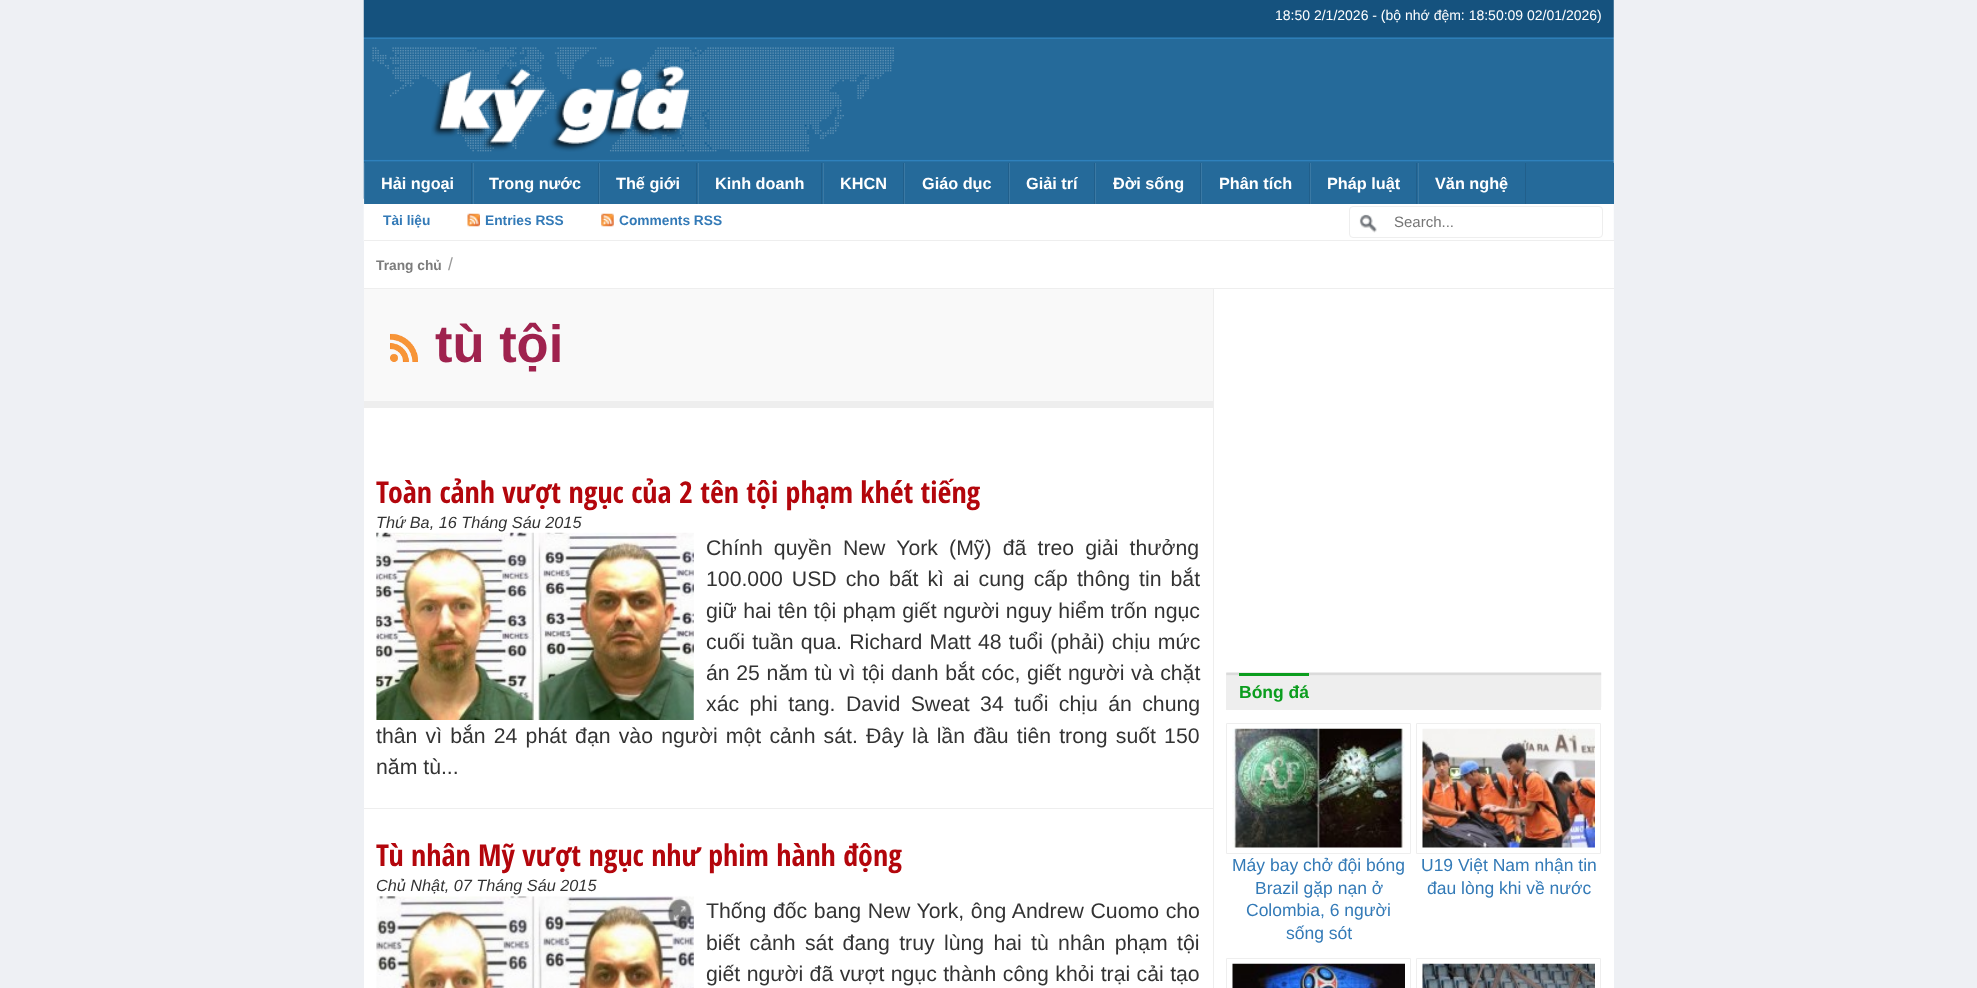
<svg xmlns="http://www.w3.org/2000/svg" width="1977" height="988">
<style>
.a{font:14px Liberation Sans;fill:#fff}
.b{font:bold 16.25px Liberation Sans;fill:#fff}
.c{font:bold 13.75px Liberation Sans;fill:#337ab7}
.d{font:15px Liberation Sans;fill:#757575}
.e{font:bold 13.75px Liberation Sans;fill:#7c7c7c}
.f{font:17.5px Liberation Sans;fill:#999}
.g{font:bold 52.5px Liberation Sans;fill:#9f224e}
.h{font:bold 30px Open Sans Condensed;fill:#b3060c}
.i{font:italic 16.25px Liberation Sans;fill:#333}
.j{font:21.25px Liberation Sans;fill:#333}
.k{font:bold 17.5px Liberation Sans;fill:#0b9d1e}
.l{font:17.5px Liberation Sans;fill:#337ab7}
</style>
<rect width="100%" height="100%" fill="#eef0f4"/>
<image href="1.png" x="363" y="0" width="1251" height="242"/>
<image href="2.png" x="372" y="47" width="522" height="105"/>
<image href="3.png" x="431" y="66" width="259" height="86"/>
<path fill="#256a9a" d="M365 163h1249v41H365z"/>
<path fill="#215f8b" d="M471 163h1v41H471z"/>
<path fill="#3b79a4" d="M364 163h1v41H364z"/>
<path fill="#215f8b" d="M598 163h1v41H598z"/>
<path fill="#3b79a4" d="M473 163h1v41H473z"/>
<path fill="#215f8b" d="M696 163h1v41H696z"/>
<path fill="#3b79a4" d="M599 163h1v41H599z"/>
<path fill="#215f8b" d="M821 163h1v41H821z"/>
<path fill="#3b79a4" d="M698 163h1v41H698z"/>
<path fill="#215f8b" d="M903 163h1v41H903z"/>
<path fill="#3b79a4" d="M823 163h1v41H823z"/>
<path fill="#215f8b" d="M1008 163h1v41H1008z"/>
<path fill="#3b79a4" d="M904 163h1v41H904z"/>
<path fill="#215f8b" d="M1094 163h1v41H1094z"/>
<path fill="#3b79a4" d="M1009 163h1v41H1009z"/>
<path fill="#215f8b" d="M1200 163h1v41H1200z"/>
<path fill="#3b79a4" d="M1095 163h1v41H1095z"/>
<path fill="#215f8b" d="M1309 163h1v41H1309z"/>
<path fill="#3b79a4" d="M1201 163h1v41H1201z"/>
<path fill="#215f8b" d="M1416 163h1v41H1416z"/>
<path fill="#3b79a4" d="M1310 163h1v41H1310z"/>
<path fill="#215f8b" d="M1525 163h1v41H1525z"/>
<path fill="#3b79a4" d="M1418 163h1v41H1418z"/>
<path fill="#eee" d="M364 240h1250v1H364z"/>
<image href="4.png" x="467" y="213" width="13" height="14"/>
<image href="5.png" x="601" y="213" width="13" height="14"/>
<image href="6.png" x="1359" y="214" width="18" height="19"/>
<rect fill="none" stroke="#eee" x="1349.5" y="206.5" width="253" height="31" rx="3.5"/>
<path fill="#fff" d="M364 241h1250v747H364z"/>
<path fill="#eee" d="M364 288h1250v1H364z"/>
<path fill="#eee" d="M1213 289h1v699H1213z"/>
<path fill="#eee" d="M364 401h849v7H364z"/>
<path fill="#f9f9f9" d="M364 289h849v112H364z"/>
<image href="7.png" x="390" y="333" width="28" height="29"/>
<path fill="#eee" d="M364 808h849v1H364z"/>
<image href="8.png" x="376" y="532" width="318" height="188"/>
<image href="9.png" x="376" y="896" width="318" height="92"/>
<path fill="#eee" d="M1226 673h375v37H1226z"/>
<image href="10.png" x="1226" y="672" width="376" height="35"/>
<path fill="#0b9d1e" d="M1239 673h70v3H1239z"/>
<path fill="none" stroke="#eee" d="M1226.5 723.5h184v130H1226.5z"/>
<image href="11.png" x="1232" y="728" width="173" height="120"/>
<path fill="none" stroke="#eee" d="M1416.5 723.5h184v130H1416.5z"/>
<image href="12.png" x="1422" y="728" width="173" height="120"/>
<path fill="none" stroke="#eee" d="M1226.5 958.5h184v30H1226.5z"/>
<image href="13.png" x="1232" y="963" width="173" height="25"/>
<path fill="none" stroke="#eee" d="M1416.5 958.5h184v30H1416.5z"/>
<image href="14.png" x="1422" y="963" width="173" height="25"/>
<text class="a" x="1275" y="20">18:50 2/1/2026 - (bộ nhớ đệm: 18:50:09 02/01/2026)</text>
<text class="b" x="381" y="189">Hải ngoại</text>
<text class="b" x="489" y="189">Trong nước</text>
<text class="b" x="616" y="189">Thế giới</text>
<text class="b" x="715" y="189">Kinh doanh</text>
<text class="b" x="840" y="189">KHCN</text>
<text class="b" x="922" y="189">Giáo dục</text>
<text class="b" x="1026" y="189">Giải trí</text>
<text class="b" x="1113" y="189">Đời sống</text>
<text class="b" x="1219" y="189">Phân tích</text>
<text class="b" x="1327" y="189">Pháp luật</text>
<text class="b" x="1435" y="189">Văn nghệ</text>
<text class="c" x="383" y="225">Tài liệu</text>
<text class="c" x="485" y="225">Entries RSS</text>
<text class="c" x="619" y="225">Comments RSS</text>
<text class="d" x="1394" y="227">Search...</text>
<text class="e" x="376" y="270">Trang chủ</text>
<text class="f" x="448" y="270">/</text>
<text class="g" x="435" y="362">tù tội</text>
<text class="h" x="376" y="503">Toàn cảnh vượt ngục của 2 tên tội phạm khét tiếng</text>
<text class="i" x="376" y="528">Thứ Ba, 16 Tháng Sáu 2015</text>
<text class="j" x="706" y="555" word-spacing="5.25">Chính quyền New York (Mỹ) đã treo giải thưởng</text>
<text class="j" x="706" y="586" word-spacing="3.1">100.000 USD cho bất kì ai cung cấp thông tin bắt</text>
<text class="j" x="706" y="618" word-spacing="0.5">giữ hai tên tội phạm giết người nguy hiểm trốn ngục</text>
<text class="j" x="706" y="649" word-spacing="1.25">cuối tuần qua. Richard Matt 48 tuổi (phải) chịu mức</text>
<text class="j" x="706" y="680" word-spacing="0.75">án 25 năm tù vì tội danh bắt cóc, giết người và chặt</text>
<text class="j" x="706" y="711" word-spacing="4.5">xác phi tang. David Sweat 34 tuổi chịu án chung</text>
<text class="j" x="376" y="743" word-spacing="2.25">thân vì bắn 24 phát đạn vào người một cảnh sát.</text>
<text class="j" x="866" y="743" word-spacing="2.25">Đây là lần đầu tiên trong suốt 150</text>
<text class="j" x="376" y="774">năm tù...</text>
<text class="h" x="376" y="866">Tù nhân Mỹ vượt ngục như phim hành động</text>
<text class="i" x="376" y="891">Chủ Nhật, 07 Tháng Sáu 2015</text>
<text class="j" x="706" y="918" word-spacing="0.75">Thống đốc bang New York, ông Andrew Cuomo cho</text>
<text class="j" x="706" y="950" word-spacing="3.4">biết cảnh sát đang truy lùng hai tù nhân phạm tội</text>
<text class="j" x="706" y="981" word-spacing="0.5">giết người đã vượt ngục thành công khỏi trại cải tạo</text>
<text class="k" x="1239" y="698">Bóng đá</text>
<text class="l" x="1232" y="871">Máy bay chở đội bóng</text>
<text class="l" x="1255" y="894">Brazil gặp nạn ở</text>
<text class="l" x="1246" y="916">Colombia, 6 người</text>
<text class="l" x="1286" y="939">sống sót</text>
<text class="l" x="1421" y="871">U19 Việt Nam nhận tin</text>
<text class="l" x="1427" y="894">đau lòng khi về nước</text>
</svg>
